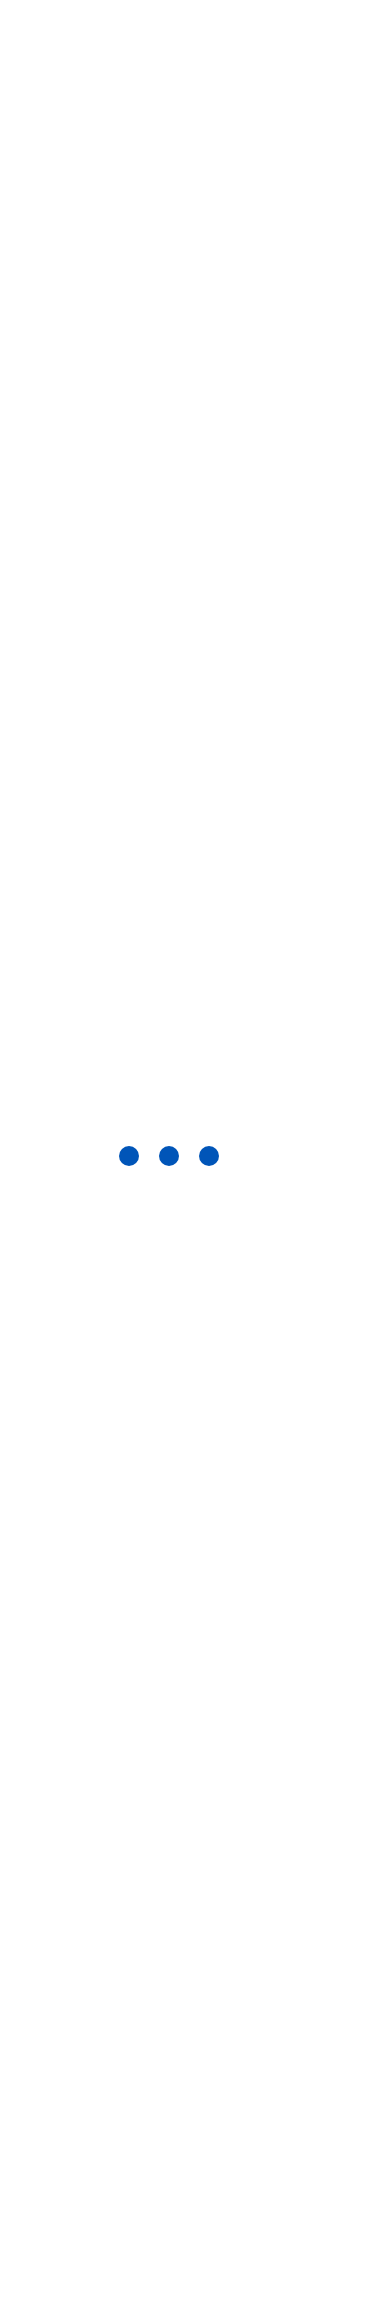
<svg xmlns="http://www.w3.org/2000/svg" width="388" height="2311">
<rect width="100%" height="100%" fill="#fff"/>
<circle fill="#0055b8" cx="129" cy="1156" r="10"/>
<circle fill="#0055b8" cx="169" cy="1156" r="10"/>
<circle fill="#0055b8" cx="209" cy="1156" r="10"/>
</svg>
